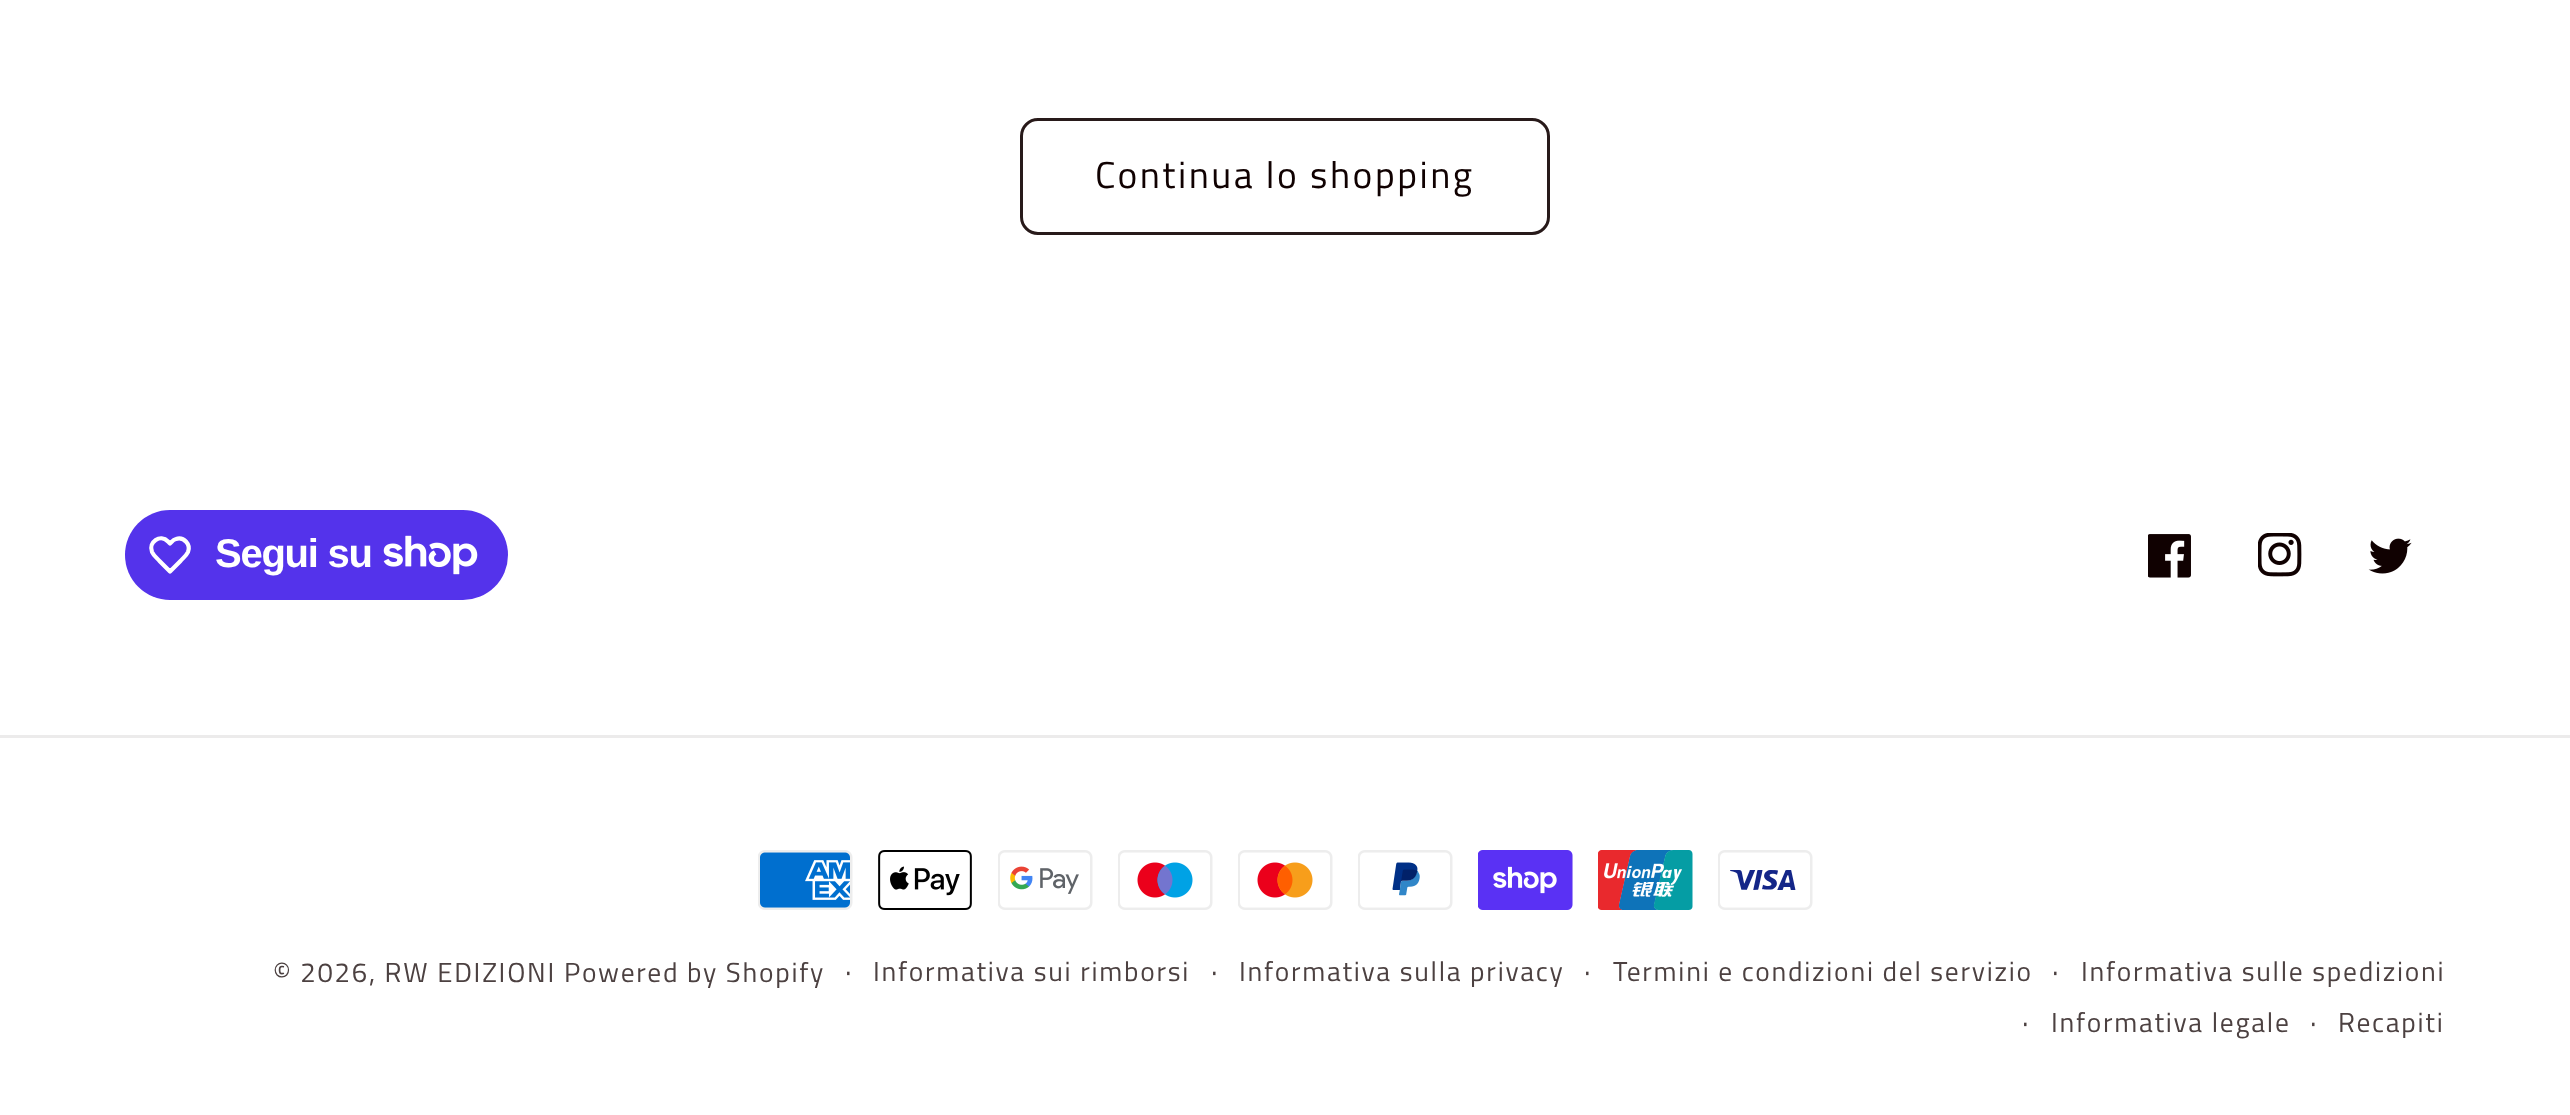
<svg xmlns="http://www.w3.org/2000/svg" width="2570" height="1115">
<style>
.a{font:37.5px Titillium Web;letter-spacing:2.5px;fill:#100101}
.b{font:bold 40px Liberation Sans;letter-spacing:-1.25px;fill:#fff}
.c{font:27.5px Titillium Web;letter-spacing:1.75px;fill:#4c4141}
.d{font:30px Titillium Web;letter-spacing:1.75px;fill:#4c4141}
</style>
<rect width="100%" height="100%" fill="#fff"/>
<rect fill="none" stroke="#281a1a" stroke-width="3" x="1021.5" y="119.5" width="527" height="114" rx="16.5"/>
<rect fill="#5433eb" x="125" y="510" width="383" height="90" rx="45"/>
<path fill="none" stroke="#fff" stroke-width="4.2" stroke-linejoin="round" d="M168 541.5l2 2c2-2 3.5-4 6-4.5c8-2.5 15 5.5 12 13c-1.5 3.5-5 6-7.5 9l-10.5 10.5l-10.5-10.5c-2.5-3-6-5.5-7.5-9c-4-10 8.5-18.5 16-10.5z"/>
<image href="1.png" x="383" y="535" width="95" height="40"/>
<image href="2.png" x="2148" y="534" width="43" height="44"/>
<image href="3.png" x="2258" y="533" width="44" height="44"/>
<image href="4.png" x="2368" y="538" width="44" height="36"/>
<path fill="#ecebeb" d="M0 735h2570v3H0z"/>
<image href="5.png" x="758" y="850" width="95" height="60"/>
<image href="6.png" x="878" y="850" width="94" height="60"/>
<image href="7.png" x="998" y="850" width="95" height="60"/>
<image href="8.png" x="1118" y="850" width="95" height="60"/>
<image href="9.png" x="1238" y="850" width="95" height="60"/>
<image href="10.png" x="1358" y="850" width="95" height="60"/>
<image href="11.png" x="1478" y="850" width="95" height="60"/>
<image href="12.png" x="1598" y="850" width="95" height="60"/>
<image href="13.png" x="1718" y="850" width="95" height="60"/>
<text class="a" x="1095" y="188">Continua lo shopping</text>
<text class="b" x="215" y="567">Segui su</text>
<text class="c" x="273" y="982">© 2026, RW EDIZIONI</text>
<text class="c" x="564" y="982">Powered by Shopify</text>
<text class="d" x="845" y="982">·</text>
<text class="c" x="873" y="981">Informativa sui rimborsi</text>
<text class="d" x="1211" y="982">·</text>
<text class="c" x="1239" y="981">Informativa sulla privacy</text>
<text class="d" x="1584" y="982">·</text>
<text class="c" x="1613" y="981">Termini e condizioni del servizio</text>
<text class="d" x="2052" y="982">·</text>
<text class="c" x="2081" y="981">Informativa sulle spedizioni</text>
<text class="d" x="2022" y="1033">·</text>
<text class="c" x="2051" y="1032">Informativa legale</text>
<text class="d" x="2310" y="1033">·</text>
<text class="c" x="2338" y="1032">Recapiti</text>
</svg>
